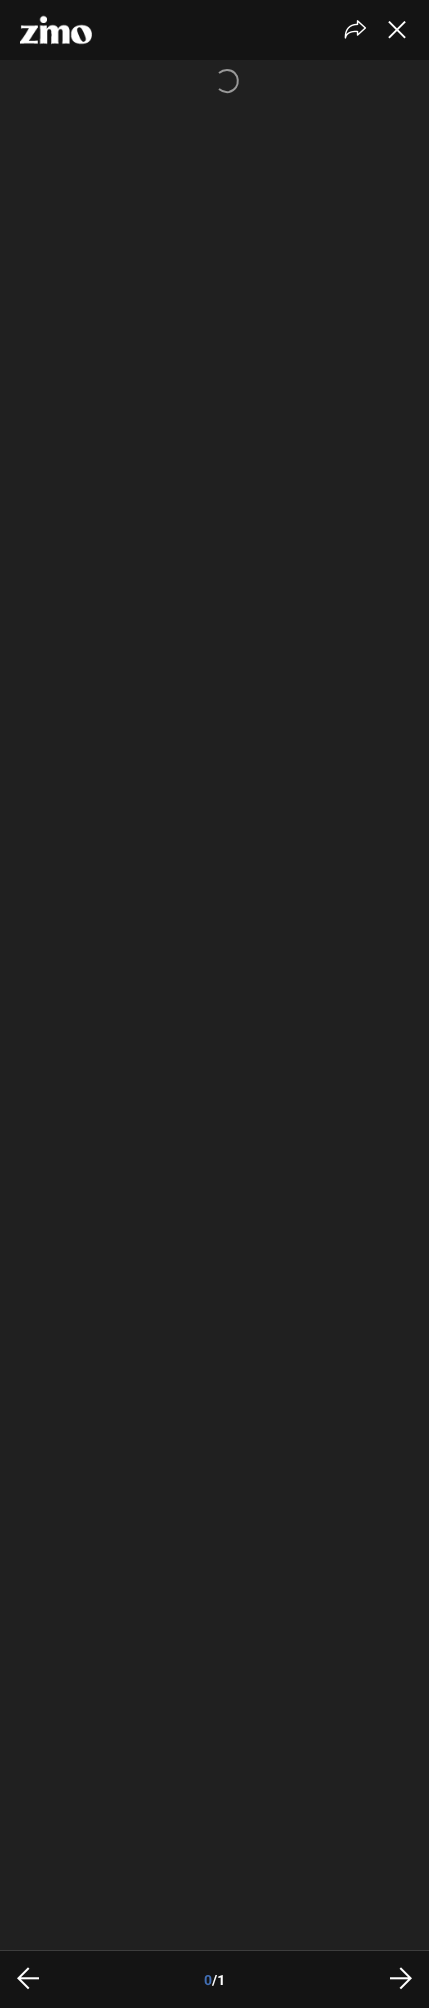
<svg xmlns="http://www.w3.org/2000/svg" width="429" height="2008">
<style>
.a{font:bold 14px Roboto;fill:#426fb5}
.b{font:bold 14px Roboto;fill:#fff}
</style>
<rect width="100%" height="100%" fill="#202020"/>
<path fill="#141414" d="M0 0h429v60H0z"/>
<image href="1.png" x="20" y="15" width="72" height="30"/>
<image href="2.png" x="344" y="20" width="23" height="19"/>
<image href="3.png" x="388" y="21" width="18" height="18"/>
<path fill="none" stroke="#999" stroke-width="2" d="M219 73c2.5-2 5-3 8-3c13 0 15 19 2 22c-3.5 .5-7-.5-10-3"/>
<path fill="#141414" d="M0 1951h429v57H0z"/>
<path fill="#3d3d3d" d="M0 1950h429v1H0z"/>
<image href="4.png" x="17" y="1967" width="22" height="23"/>
<image href="5.png" x="390" y="1967" width="22" height="23"/>
<text class="a" x="204" y="1985">0</text>
<text class="b" x="212" y="1985">/1</text>
</svg>
